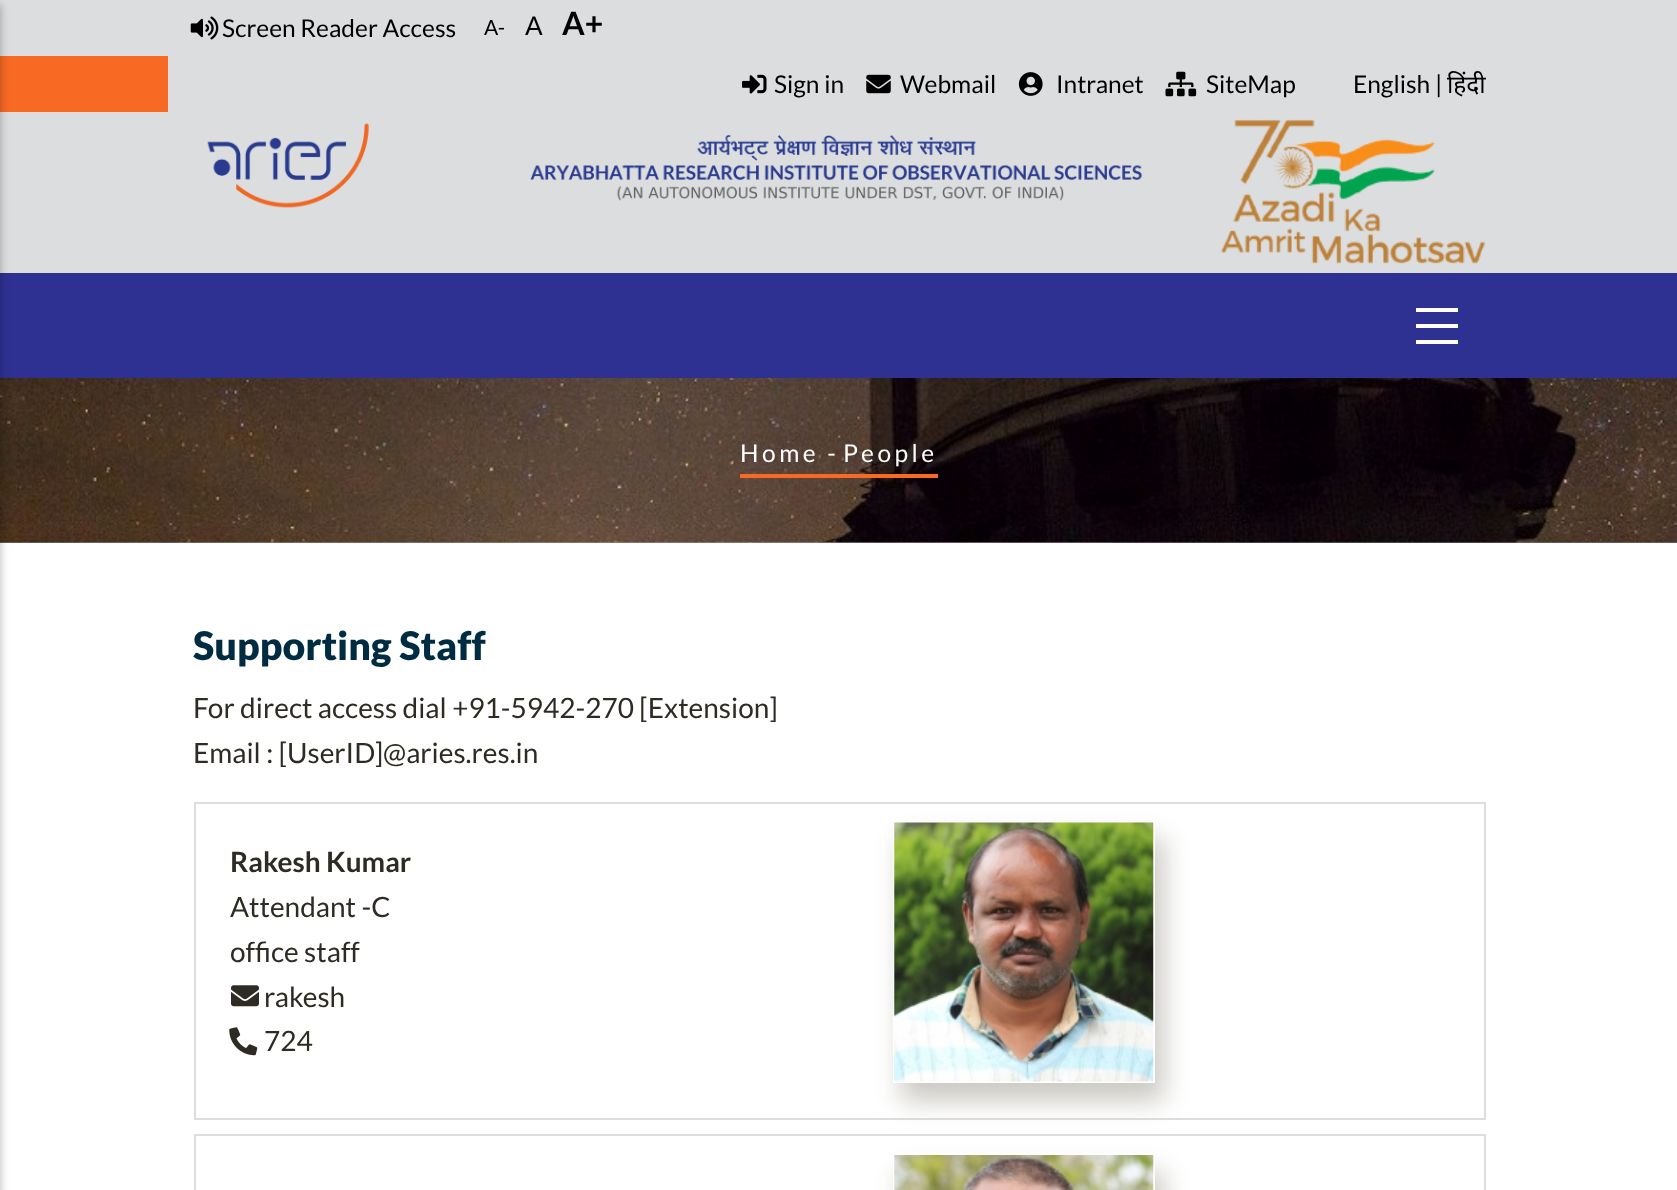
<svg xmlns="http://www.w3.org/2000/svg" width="1677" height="1190">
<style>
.a{font:24.5px Lato;fill:#000}
.b{font:21px Lato;fill:#000}
.c{font:26px Lato;fill:#000}
.d{font:bold 32px Lato;fill:#000}
.e{font:24.5px Noto Sans;fill:#000}
.f{font:24.5px Lato;letter-spacing:3.5px;fill:#fff}
.g{font:900 39.25px Lato;fill:#002c42}
.h{font:28px Lato;fill:#2e2b24}
.i{font:bold 28px Lato;fill:#2e2b24}
</style>
<defs>
<clipPath id="clip1"><path d="M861 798h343v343h-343zm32 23h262v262h-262z" clip-rule="evenodd"/></clipPath>
<clipPath id="clip2"><path d="M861 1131h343v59h-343zm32 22h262v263h-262z" clip-rule="evenodd"/></clipPath>
</defs>
<rect width="100%" height="100%" fill="#fff"/>
<path fill="#dcdddf" d="M0 0h1677v273H0z"/>
<image href="1.png" x="207" y="123" width="936" height="85"/>
<image href="2.png" x="1221" y="119" width="265" height="145"/>
<path fill="#2f3192" d="M0 273h1677v105H0z"/>
<path fill="#f86923" d="M0 56h168v56H0z"/>
<image href="8.png" x="0" y="542" width="1677" height="1"/>
<image href="9.png" x="0" y="378" width="1677" height="165"/>
<path fill="#00000033" filter="blur(3.5px)" d="M-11 5h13v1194H-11z"/>
<path fill="#fff" d="M1416 308h42v4H1416z"/>
<path fill="#fff" d="M1416 324h42v4H1416z"/>
<path fill="#fff" d="M1416 340h42v4H1416z"/>
<image href="3.png" x="190" y="16" width="29" height="24"/>
<image href="4.png" x="742" y="74" width="25" height="20"/>
<image href="5.png" x="866" y="74" width="25" height="20"/>
<image href="6.png" x="1018" y="72" width="25" height="24"/>
<image href="7.png" x="1165" y="71" width="32" height="26"/>
<path fill="#f86923" d="M740 474h198v4H740z"/>
<path fill="none" stroke="#ddd" stroke-width="2" d="M195 803h1290v316H195z"/>
<image href="10.png" x="231" y="985" width="28" height="22"/>
<image href="11.png" x="229" y="1027" width="29" height="29"/>
<g clip-path="url(#clip1)">
<path fill="#cbc9c3" filter="blur(13px)" d="M901 838h263v263H901z"/>
</g>
<image href="12.png" x="894" y="822" width="260" height="260"/>
<path fill="none" stroke="#ddd" stroke-width="2" d="M195 1135h1290v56H195z"/>
<g clip-path="url(#clip2)">
<path fill="#cbc9c3" filter="blur(13px)" d="M901 1171h263v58H901z"/>
</g>
<image href="13.png" x="894" y="1155" width="260" height="35"/>
<text class="a" x="222" y="37">Screen Reader Access</text>
<text class="b" x="484" y="35">A-</text>
<text class="c" x="525" y="35">A</text>
<text class="d" x="562" y="35">A+</text>
<text class="a" x="774" y="93">Sign in</text>
<text class="a" x="900" y="93">Webmail</text>
<text class="a" x="1056" y="93">Intranet</text>
<text class="a" x="1206" y="93">SiteMap</text>
<text class="a" x="1353" y="93">English |</text>
<text class="e" x="1447" y="93">हिंदी</text>
<text class="f" x="740" y="462">Home -</text>
<text class="f" x="843" y="462">People</text>
<text class="g" x="193" y="660">Supporting Staff</text>
<text class="h" x="193" y="718">For direct access dial +91-5942-270 [Extension]</text>
<text class="h" x="193" y="763">Email : [UserID]@aries.res.in</text>
<text class="i" x="230" y="872">Rakesh Kumar</text>
<text class="h" x="230" y="917">Attendant -C</text>
<text class="h" x="230" y="962">office staff</text>
<text class="h" x="264" y="1007">rakesh</text>
<text class="h" x="264" y="1051">724</text>
</svg>
